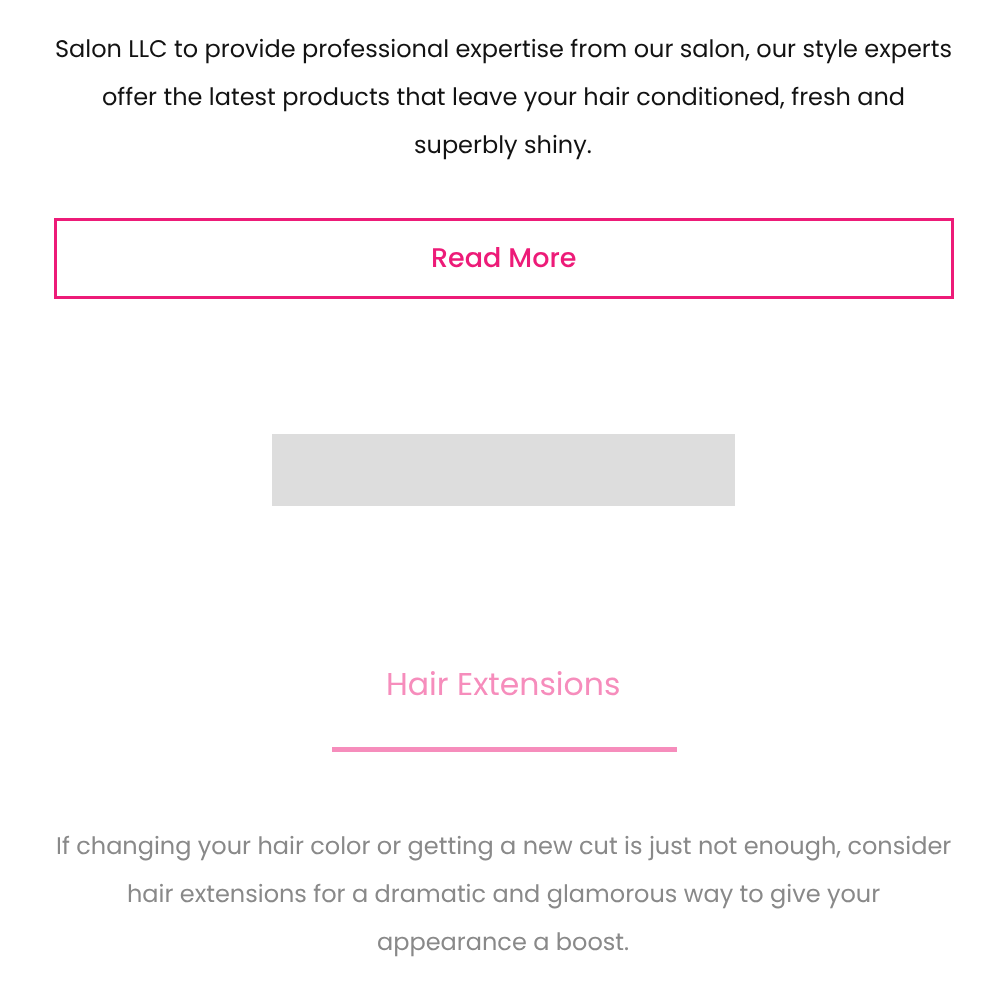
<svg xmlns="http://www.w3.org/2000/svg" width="1006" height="981">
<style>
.a{font:24px Poppins;fill:#121212}
.b{font:500 27px Poppins;fill:#ed1b78}
.c{font:31.5px Poppins;fill:#f68dbc}
.d{font:24px Poppins;fill:#898989}
</style>
<rect width="100%" height="100%" fill="#fff"/>
<path fill="none" stroke="#ed1b78" stroke-width="3" d="M55.5 219.5h897v78H55.5z"/>
<path fill="#ddd" d="M272 434h463v72H272z"/>
<path fill="#f68dbc" d="M332 747h345v5H332z"/>
<text class="a" x="55" y="57">Salon LLC to provide professional expertise from our salon, our style experts</text>
<text class="a" x="102" y="105">offer the latest products that leave your hair conditioned, fresh and</text>
<text class="a" x="414" y="153">superbly shiny.</text>
<text class="b" x="431" y="267">Read More</text>
<text class="c" x="386" y="695">Hair Extensions</text>
<text class="d" x="56" y="854">If changing your hair color or getting a new cut is just not enough, consider</text>
<text class="d" x="127" y="902">hair extensions for a dramatic and glamorous way to give your</text>
<text class="d" x="377" y="950">appearance a boost.</text>
</svg>
